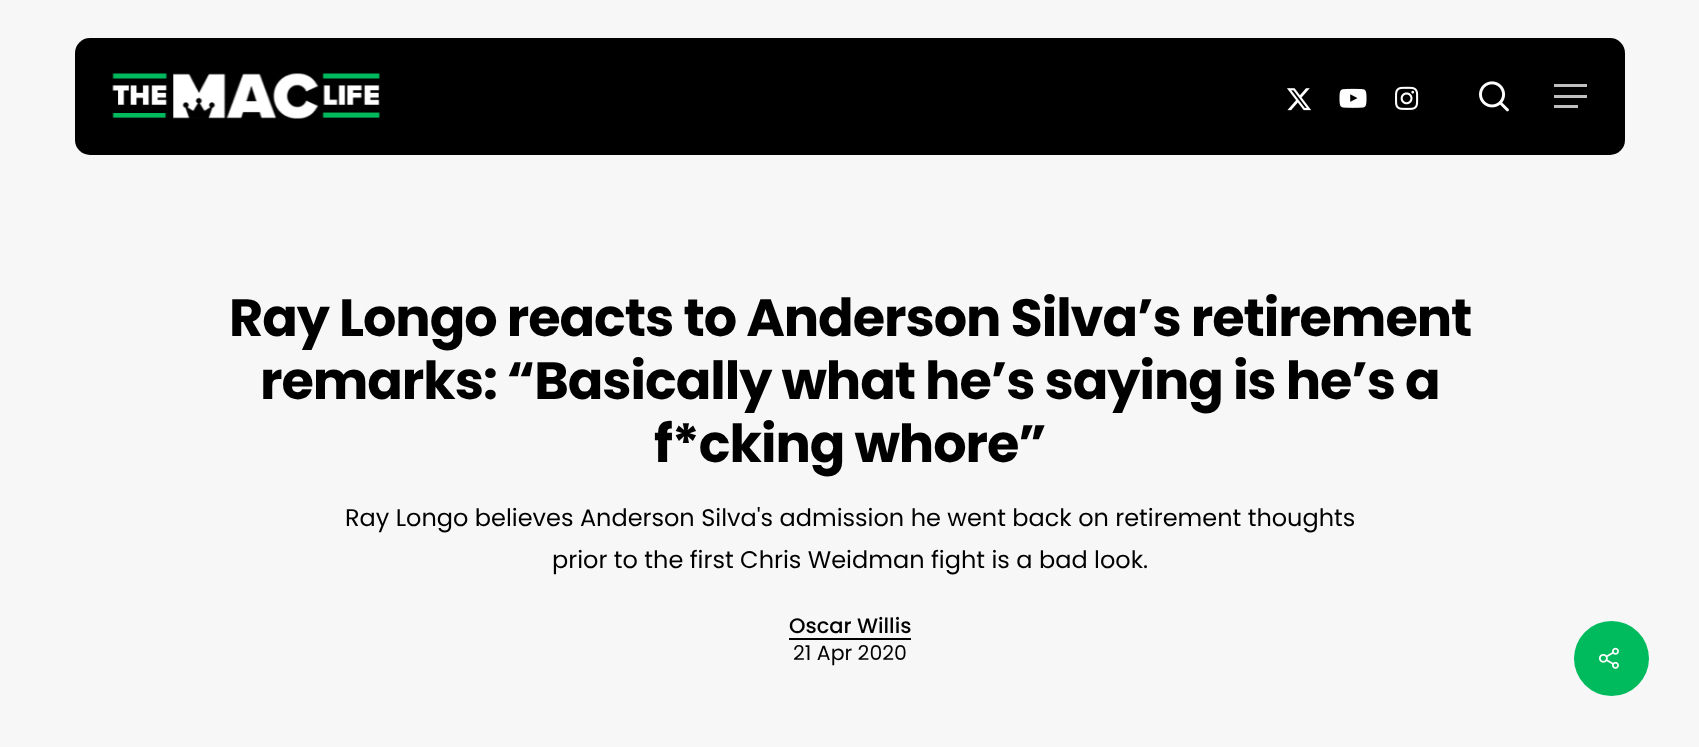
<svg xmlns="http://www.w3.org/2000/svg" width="1699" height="747">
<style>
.a{font:bold 52.5px Poppins;letter-spacing:-1.05px;fill:#000}
.b{font:24px Poppins;fill:#000}
.c{font:500 21px Poppins;fill:#000}
.d{font:20.5px Poppins;fill:#000}
</style>
<rect width="100%" height="100%" fill="#f7f7f7"/>
<rect fill="#000" x="75" y="38" width="1550" height="117" rx="15"/>
<image href="1.png" x="112" y="73" width="268" height="46"/>
<image href="2.png" x="1287" y="88" width="24" height="23"/>
<image href="3.png" x="1339" y="88" width="28" height="20"/>
<image href="4.png" x="1395" y="86" width="24" height="24"/>
<image href="5.png" x="1479" y="81" width="30" height="31"/>
<path fill="#bfbfbf" d="M1554 84h33v3H1554z"/>
<path fill="#bfbfbf" d="M1554 105h24v3H1554z"/>
<path fill="#bfbfbf" d="M1554 95h33v3H1554z"/>
<path fill="#000" d="M789 638h122v2H789z"/>
<circle fill="#00ba5e" cx="1611.5" cy="658.5" r="37.5"/>
<image href="6.png" x="1599" y="647" width="20" height="22"/>
<text class="a" x="229" y="336">Ray Longo reacts to Anderson Silva’s retirement</text>
<text class="a" x="260" y="399">remarks: “Basically what he’s saying is he’s a</text>
<text class="a" x="654" y="462">f*cking whore”</text>
<text class="b" x="345" y="526">Ray Longo believes Anderson Silva's admission he went back on retirement thoughts</text>
<text class="b" x="552" y="568">prior to the first Chris Weidman fight is a bad look.</text>
<text class="c" x="789" y="633">Oscar Willis</text>
<text class="d" x="793" y="660">21 Apr 2020</text>
</svg>
